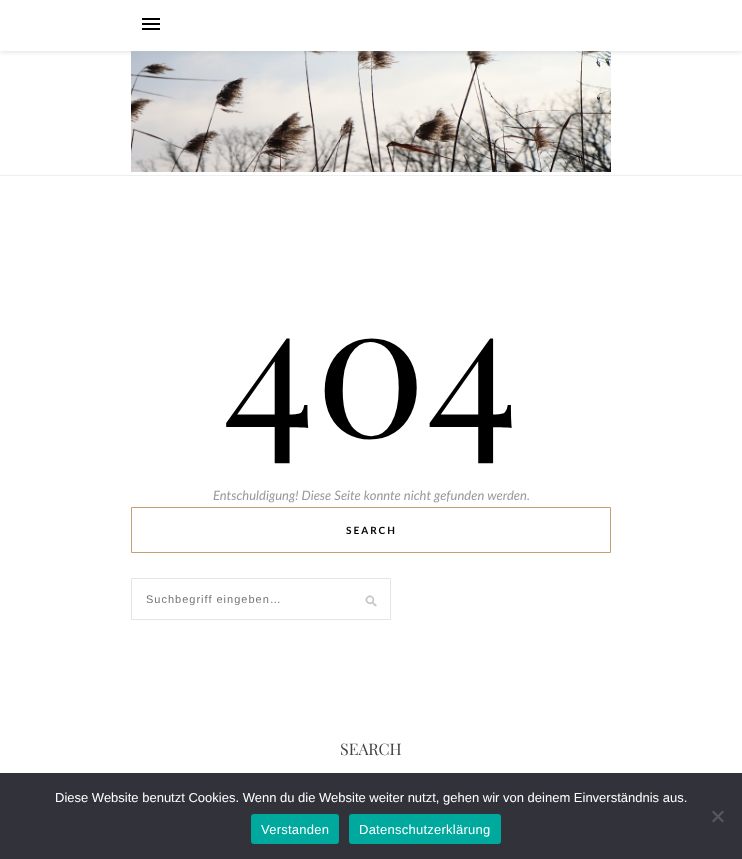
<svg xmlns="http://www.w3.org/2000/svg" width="742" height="859">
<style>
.a{font:186px Playfair Display;fill:#000}
.b{font:italic 13px Lato;fill:#999}
.c{font:bold 10px Lato;letter-spacing:2px;fill:#000}
.d{font:11px Liberation Sans;letter-spacing:1px;fill:#757575}
.e{font:16px Playfair Display;fill:#424242}
.f{font:13px Liberation Sans;fill:#fff}
.g{font:13px Liberation Sans;letter-spacing:0.25px;fill:#fff}
</style>
<defs>
<clipPath id="clip1"><path d="M146 593h230v12H146z"/></clipPath>
</defs>
<rect width="100%" height="100%" fill="#fff"/>
<image href="1.png" x="131" y="51" width="480" height="121"/>
<path fill="#bebebe75" filter="blur(2.5px)" d="M0 1h742v51H0z"/>
<path fill="#fff" d="M0 0h742v51H0z"/>
<path fill="#000" d="M142 18h18v2H142z"/>
<path fill="#000" d="M142 23h18v2H142z"/>
<path fill="#000" d="M142 28h18v2H142z"/>
<path fill="#eee" d="M0 175h742v1H0z"/>
<path fill="none" stroke="#c69f73" d="M131.5 507.5h479v45H131.5z"/>
<image href="2.png" x="365" y="595" width="12" height="12"/>
<path fill="none" stroke="#e5e5e5" d="M131.5 578.5h259v41H131.5z"/>
<path fill="#32323a" d="M0 773h742v86H0z"/>
<path fill="#59595d" d="M722.5 810.5l1.5 1.5l-10.5 10.5l-1.5-1.5z"/>
<path fill="#59595d" d="M712 812l1.5-1.5l10.5 10.5l-1.5 1.5z"/>
<rect fill="#00a99d" x="251" y="814" width="88" height="30" rx="3"/>
<rect fill="#00a99d" x="349" y="814" width="152" height="30" rx="3"/>
<text class="a" x="223" y="437">404</text>
<text class="b" x="213" y="500">Entschuldigung! Diese Seite konnte nicht gefunden werden.</text>
<text class="c" x="346" y="534">SEARCH</text>
<g clip-path="url(#clip1)">
<text class="d" x="146" y="603">Suchbegriff eingeben…</text>
</g>
<text class="e" x="340" y="755">SEARCH</text>
<text class="f" x="55" y="802">Diese Website benutzt Cookies. Wenn du die Website weiter nutzt, gehen wir von deinem Einverständnis aus.</text>
<text class="g" x="261" y="834">Verstanden</text>
<text class="g" x="359" y="834">Datenschutzerklärung</text>
</svg>
